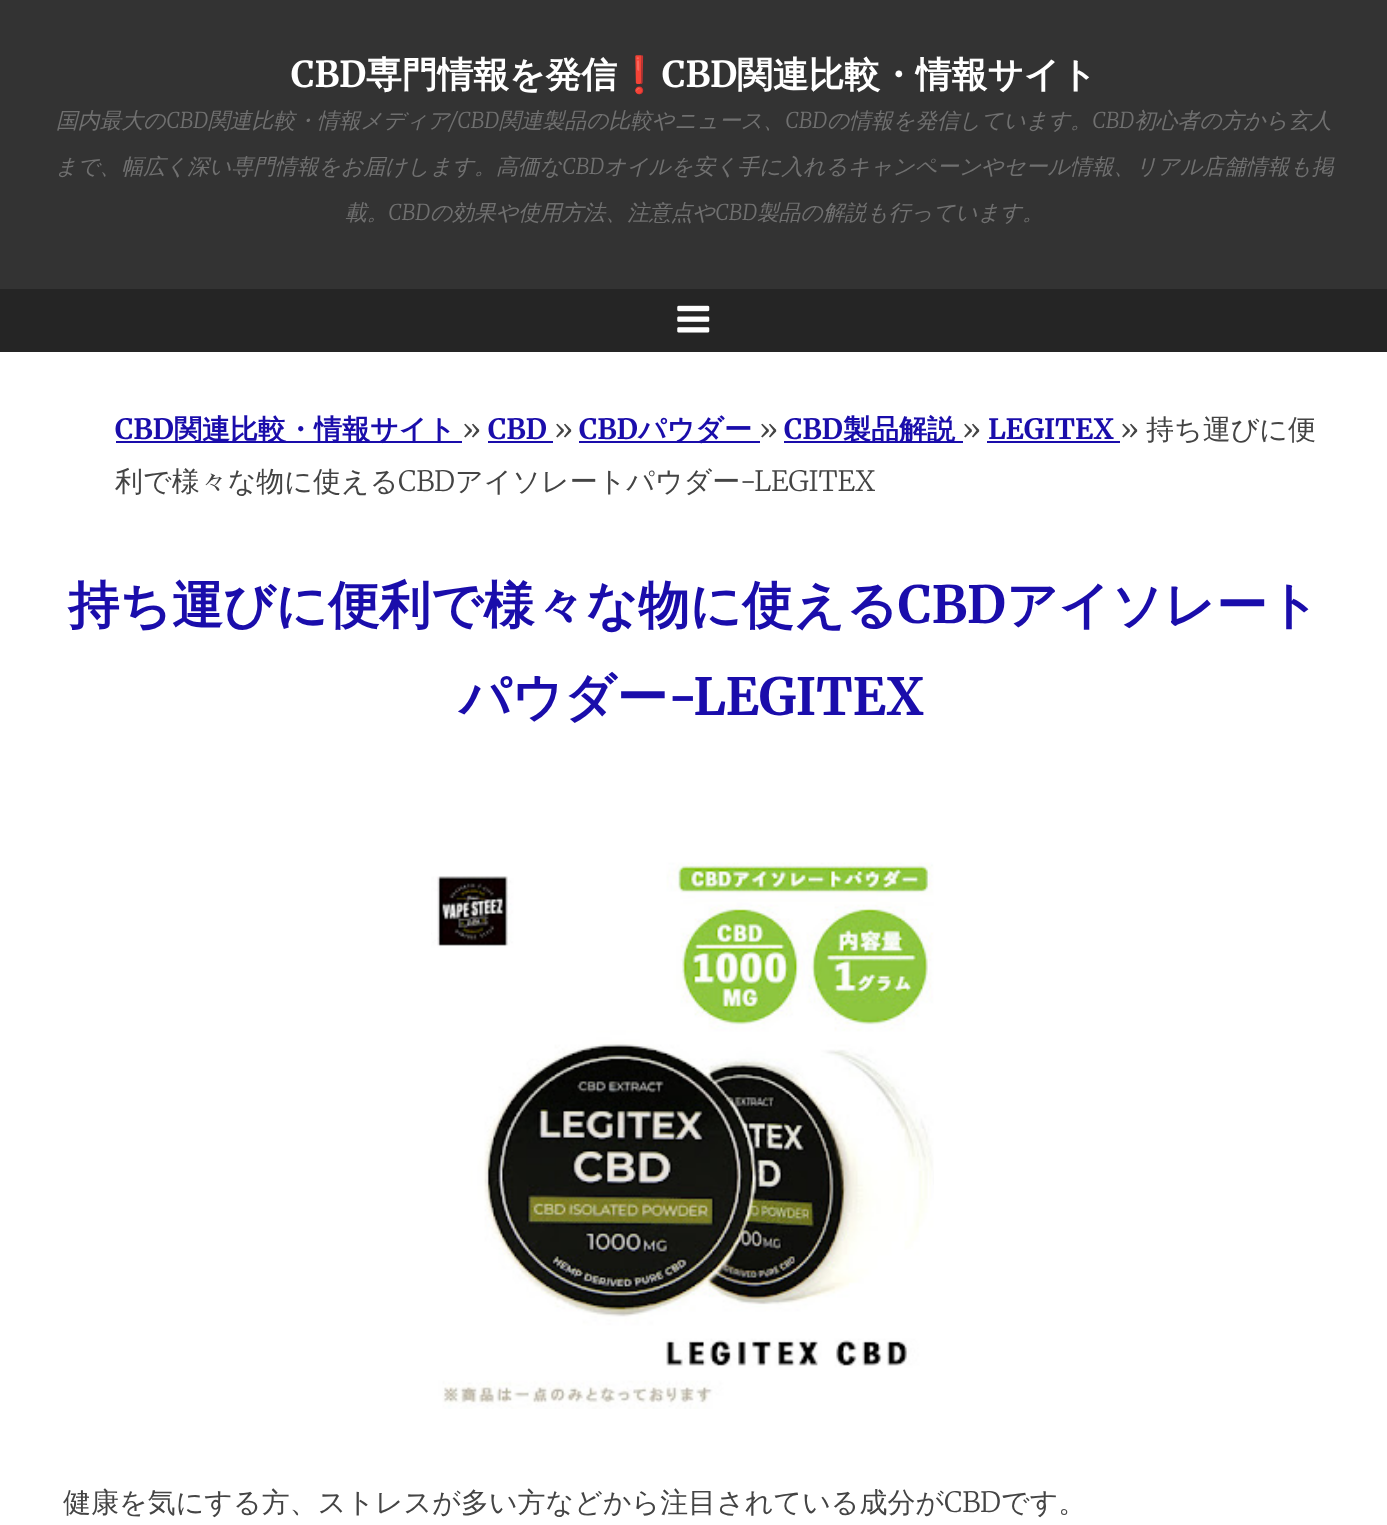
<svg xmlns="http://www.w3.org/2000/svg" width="1387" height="1525">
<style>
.a{font:bold 35.75px Merriweather;fill:#fff}
.b{font:bold 35.75px WenQuanYi Zen Hei;fill:#fff}
.c{font:bold 35.75px Noto Color Emoji;fill:#fff}
.d{font:italic 500 21.8px WenQuanYi Zen Hei;fill:#707070}
.e{font:italic 300 21.8px Merriweather;fill:#707070}
.f{font:bold 28px Merriweather;fill:#1a0dab}
.g{font:bold 28px WenQuanYi Zen Hei;fill:#1a0dab}
.h{font:300 28px Merriweather;fill:#444}
.i{font:500 28px WenQuanYi Zen Hei;fill:#444}
.j{font:bold 51.3px WenQuanYi Zen Hei;fill:#1a0dab}
.k{font:bold 51.3px Merriweather;fill:#1a0dab}
</style>
<rect width="100%" height="100%" fill="#fff"/>
<path fill="#333" d="M0 0h1387v289H0z"/>
<path fill="#252525" d="M0 289h1387v63H0z"/>
<image href="1.png" x="677" y="305" width="33" height="28"/>
<path fill="#1a0dab" d="M116 441h346v2H116z"/>
<path fill="#1a0dab" d="M488 441h65v2H488z"/>
<path fill="#1a0dab" d="M579 441h181v2H579z"/>
<path fill="#1a0dab" d="M784 441h179v2H784z"/>
<path fill="#1a0dab" d="M987 441h133v2H987z"/>
<image href="2.png" x="431" y="862" width="503" height="547"/>
<text class="a" x="291" y="87">CBD</text>
<text class="b" x="366" y="87">専門情報を発信</text>
<text class="c" x="617" y="87">❗️</text>
<text class="a" x="662" y="87">CBD</text>
<text class="b" x="737" y="87">関連比較・情報サイト</text>
<text class="d" x="56" y="128">国内最大の</text>
<text class="e" x="166" y="128">CBD</text>
<text class="d" x="208" y="128">関連比較・情報メディア</text>
<text class="e" x="449" y="128">/CBD</text>
<text class="d" x="499" y="128">関連製品の比較やニュース、</text>
<text class="e" x="785" y="128">CBD</text>
<text class="d" x="827" y="128">の情報を発信しています。</text>
<text class="e" x="1092" y="128">CBD</text>
<text class="d" x="1134" y="128">初心者の方から玄人</text>
<text class="d" x="55" y="174">まで、幅広く深い専門情報をお届けします。高価な</text>
<text class="e" x="562" y="174">CBD</text>
<text class="d" x="604" y="174">オイルを安く手に入れるキャンペーンやセール情報、リアル店舗情報も掲</text>
<text class="d" x="345" y="220">載。</text>
<text class="e" x="388" y="220">CBD</text>
<text class="d" x="430" y="220">の効果や使用方法、注意点や</text>
<text class="e" x="715" y="220">CBD</text>
<text class="d" x="757" y="220">製品の解説も行っています。</text>
<text class="f" x="115" y="439">CBD</text>
<text class="g" x="174" y="439">関連比較・情報サイト</text>
<text class="h" x="462" y="439">»</text>
<text class="f" x="488" y="439">CBD</text>
<text class="h" x="554" y="439">»</text>
<text class="f" x="579" y="439">CBD</text>
<text class="g" x="638" y="439">パウダー</text>
<text class="h" x="759" y="439">»</text>
<text class="f" x="784" y="439">CBD</text>
<text class="g" x="843" y="439">製品解説</text>
<text class="h" x="962" y="439">»</text>
<text class="f" x="988" y="439">LEGITEX</text>
<text class="h" x="1120" y="439">»</text>
<text class="i" x="1146" y="439">持ち運びに便</text>
<text class="i" x="115" y="491">利で様々な物に使える</text>
<text class="h" x="398" y="491">CBD</text>
<text class="i" x="455" y="491">アイソレートパウダー</text>
<text class="h" x="740" y="491">-LEGITEX</text>
<text class="j" x="68" y="623">持ち運びに便利で様々な物に使える</text>
<text class="k" x="898" y="623">CBD</text>
<text class="j" x="1006" y="623">アイソレート</text>
<text class="j" x="459" y="715">パウダー</text>
<text class="k" x="668" y="715">-LEGITEX</text>
<text class="i" x="63" y="1512">健康を気にする方、ストレスが多い方などから注目されている成分が</text>
<text class="h" x="944" y="1512">CBD</text>
<text class="i" x="1001" y="1512">です。</text>
</svg>
